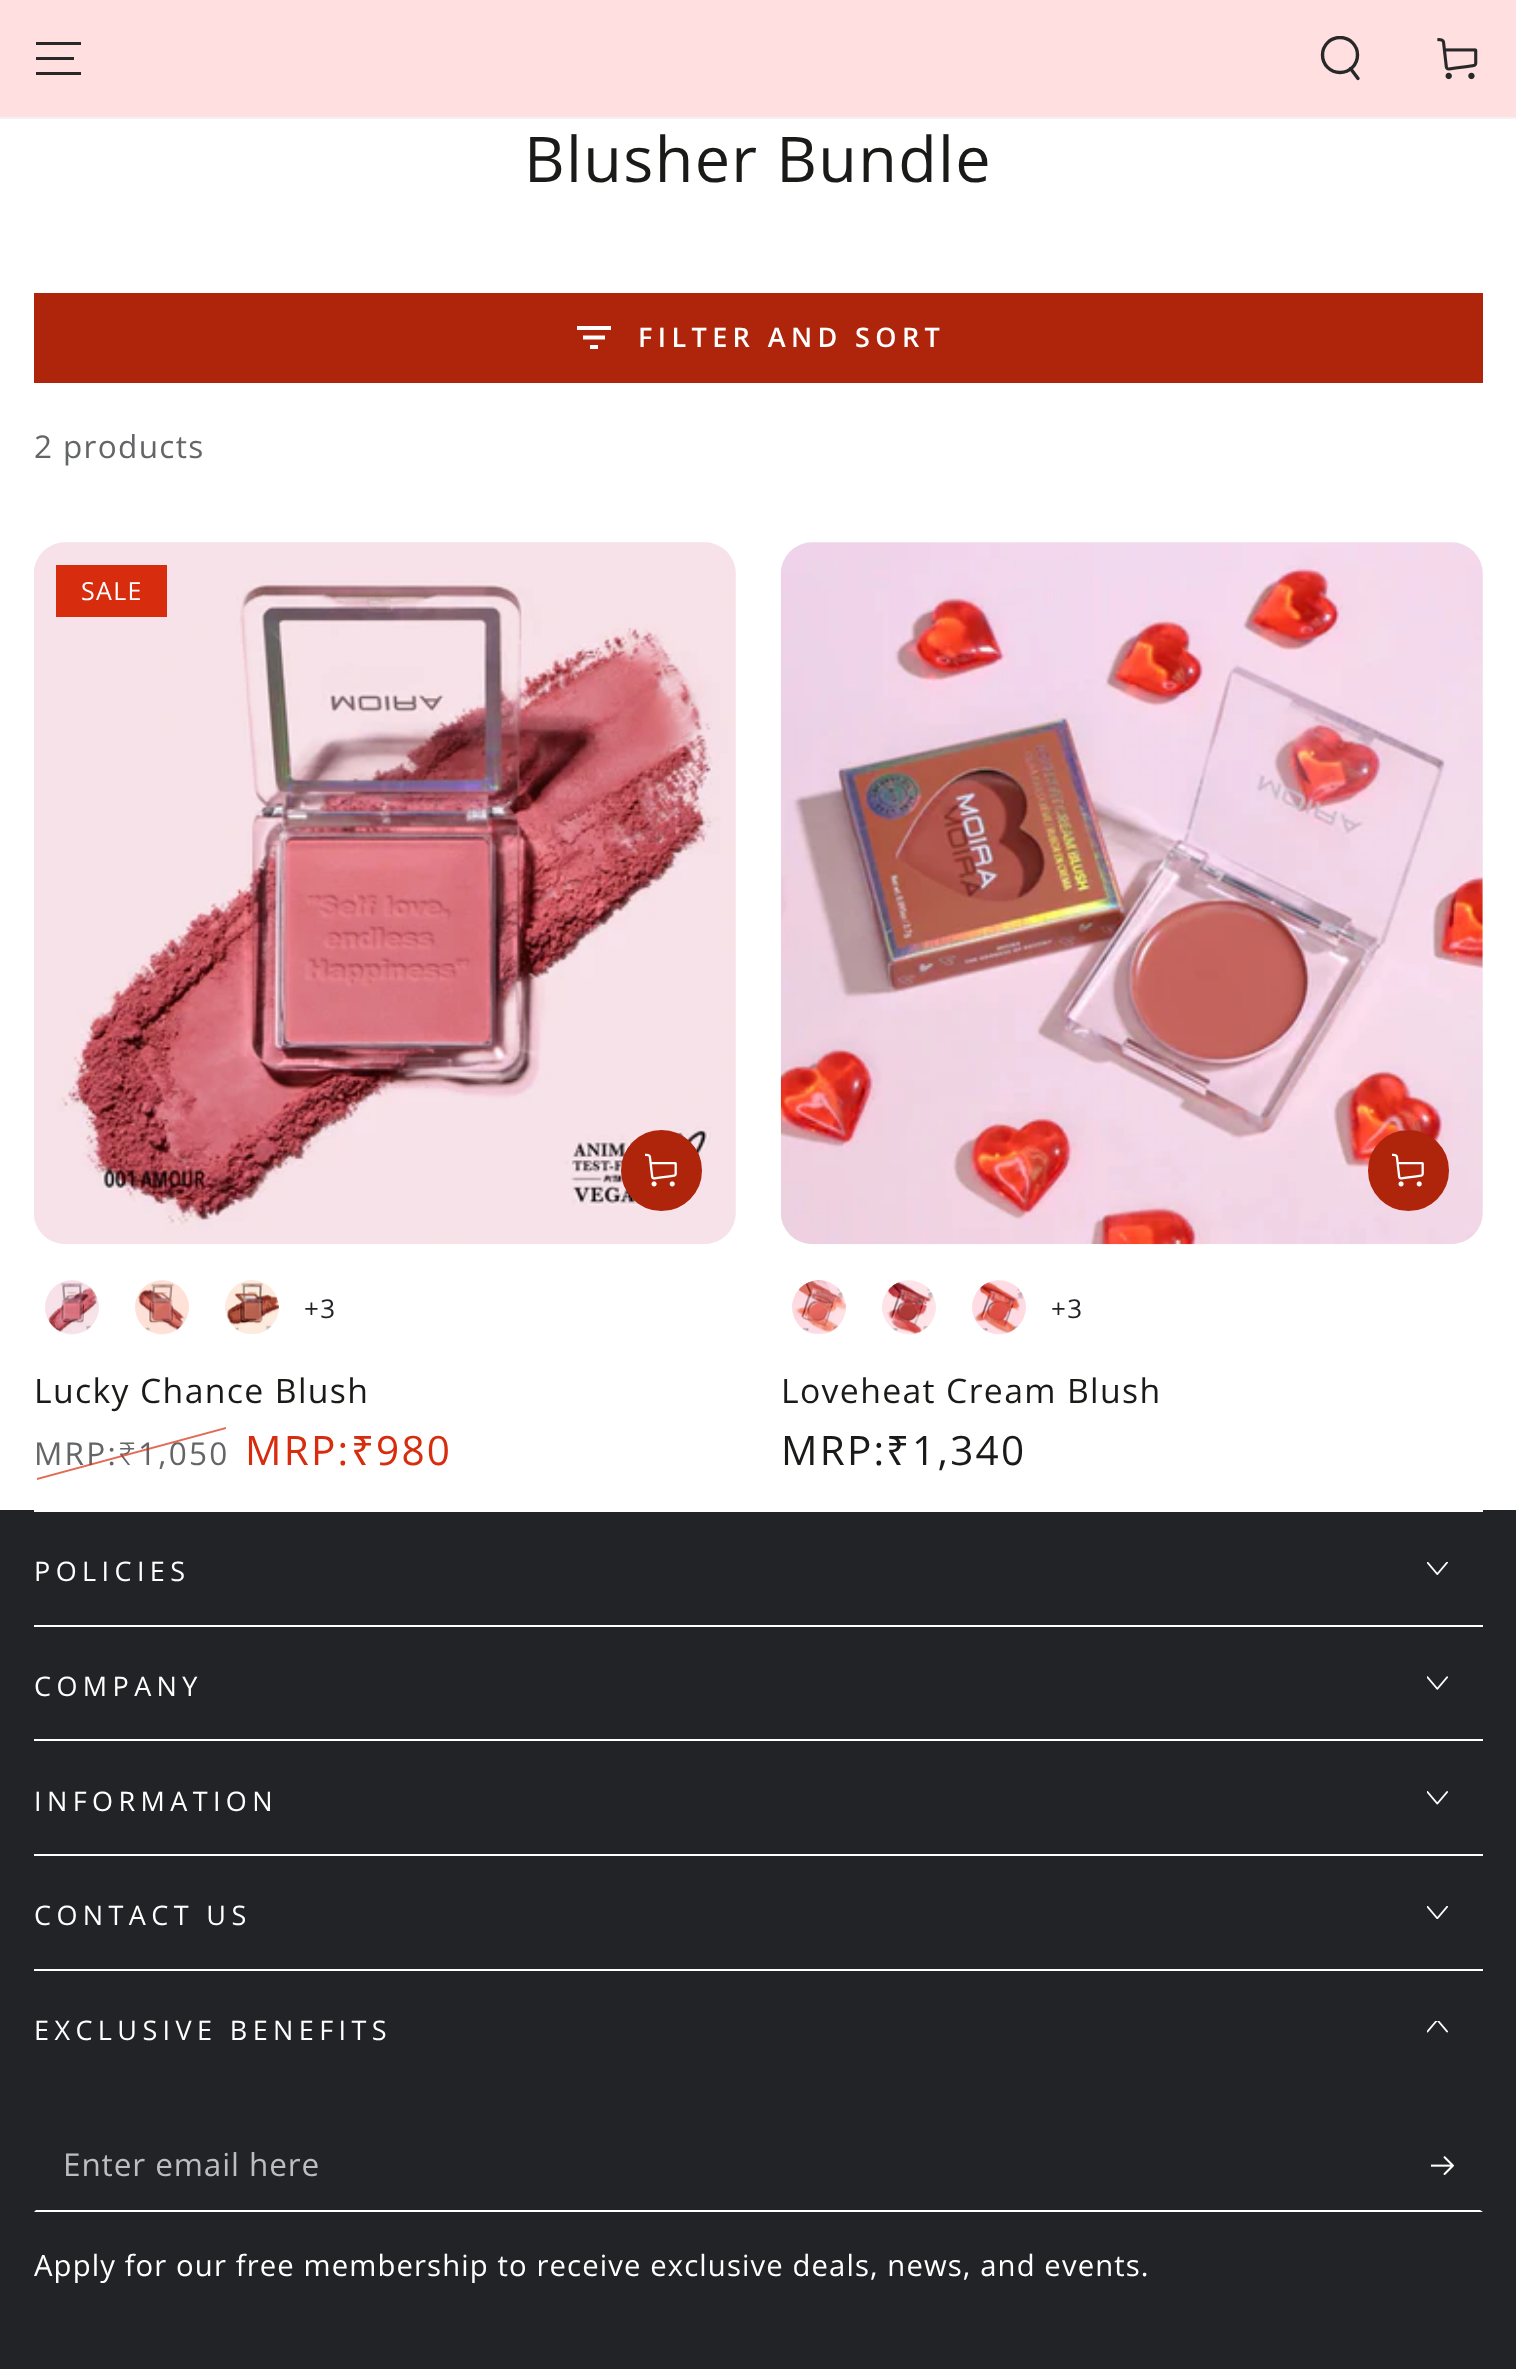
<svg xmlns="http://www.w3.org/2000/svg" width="1516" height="2369">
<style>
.a{font:63px Open Sans;letter-spacing:1.35px;fill:#1a1b18}
.b{font:600 27px Open Sans;letter-spacing:5.4px;fill:#fff}
.c{font:31.5px Open Sans;letter-spacing:1.35px;fill:#646567}
.d{font:25px Open Sans;letter-spacing:1.35px;fill:#fff}
.e{font:26px Open Sans;letter-spacing:1.35px;fill:#212326}
.f{font:33.75px Open Sans;letter-spacing:1.35px;fill:#1a1b18}
.g{font:31.5px Open Sans;letter-spacing:2.25px;fill:#646567}
.h{font:300 31.5px Noto Sans;letter-spacing:2.25px;fill:#646567}
.i{font:40.5px Open Sans;letter-spacing:2.25px;fill:#d72c0d}
.j{font:40.5px Noto Sans;letter-spacing:2.25px;fill:#d72c0d}
.k{font:40.5px Open Sans;letter-spacing:2.25px;fill:#1a1b18}
.l{font:40.5px Noto Sans;letter-spacing:2.25px;fill:#1a1b18}
.m{font:27px Open Sans;letter-spacing:5.4px;fill:#fff}
.n{font:31.5px Open Sans;letter-spacing:0.9px;fill:#bcbdbe}
.o{font:29.25px Open Sans;letter-spacing:1.12px;fill:#fff}
</style>
<defs>
<clipPath id="clip1"><path d="M1319 36h45v45H1319z"/></clipPath>
</defs>
<rect width="100%" height="100%" fill="#fff"/>
<path fill="#f2f2f4" d="M0 117v2h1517v-117h-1v115z"/>
<path fill="#ffdfdf" d="M0 0h1516v117H0z"/>
<path fill="none" stroke="#282828" stroke-width="3.1" d="M36 73.5h45m-45-15h38m-38-15h45"/>
<g clip-path="url(#clip1)">
<circle fill="none" stroke="#282828" stroke-width="3.4" cx="1340" cy="55" r="17.5"/>
</g>
<path fill="none" stroke="#282828" stroke-width="3.4" stroke-linecap="round" d="M1350.5 68.5l7.5 10"/>
<image href="1.png" x="1437" y="38" width="41" height="42"/>
<path fill="#af250c" d="M34 293h1449v90H34z"/>
<path fill="#fff" d="M590 349h8v-4h-8zm-13-23v4h34v-4zm6 13.5h22v-4h-22z"/>
<rect fill="#f3f3f3" x="34" y="542" width="702" height="702" rx="32"/>
<image href="2.png" x="34" y="542" width="702" height="702"/>
<path fill="#d72c0d" d="M56 565h111v52H56z"/>
<circle fill="#af250c" stroke="#af250c" stroke-width="2" cx="661.5" cy="1170.5" r="39.5"/>
<image href="3.png" x="645" y="1153" width="32" height="34"/>
<image href="4.png" x="45" y="1280" width="54" height="55"/>
<image href="5.png" x="45" y="1280" width="54" height="55"/>
<image href="6.png" x="135" y="1280" width="54" height="55"/>
<image href="7.png" x="135" y="1280" width="54" height="55"/>
<image href="8.png" x="225" y="1280" width="54" height="54"/>
<image href="9.png" x="225" y="1280" width="54" height="54"/>
<rect fill="#f3f3f3" x="781" y="542" width="702" height="702" rx="32"/>
<image href="10.png" x="780" y="542" width="703" height="703"/>
<circle fill="#af250c" stroke="#af250c" stroke-width="2" cx="1408.5" cy="1170.5" r="39.5"/>
<image href="3.png" x="1392" y="1153" width="32" height="34"/>
<image href="11.png" x="792" y="1280" width="54" height="54"/>
<image href="12.png" x="792" y="1280" width="54" height="54"/>
<image href="13.png" x="882" y="1280" width="54" height="55"/>
<image href="14.png" x="882" y="1280" width="54" height="55"/>
<image href="15.png" x="972" y="1280" width="54" height="55"/>
<image href="16.png" x="972" y="1280" width="54" height="55"/>
<path fill="#212326" d="M0 1510h1516v859H0z"/>
<path fill="#fff" d="M34 1510h1449v2H34z"/>
<path fill="#fff" d="M34 1625h1449v2H34z"/>
<image href="17.png" x="1427" y="1562" width="21" height="13"/>
<path fill="#fff" d="M34 1739h1449v2H34z"/>
<image href="18.png" x="1427" y="1676" width="21" height="14"/>
<path fill="#fff" d="M34 1854h1449v2H34z"/>
<image href="19.png" x="1427" y="1791" width="21" height="14"/>
<path fill="#fff" d="M34 1969h1449v2H34z"/>
<image href="20.png" x="1427" y="1906" width="21" height="13"/>
<image href="21.png" x="1427" y="2021" width="21" height="12"/>
<path fill="#fff" d="M1483 2212h-1449l2-2h1444z"/>
<image href="22.png" x="1431" y="2156" width="23" height="19"/>
<text class="a" x="524" y="182">Blusher Bundle</text>
<text class="b" x="638" y="347">FILTER AND SORT</text>
<text class="c" x="34" y="458">2 products</text>
<text class="d" x="81" y="600">SALE</text>
<text class="e" x="304" y="1318">+3</text>
<text class="f" x="34" y="1403">Lucky Chance Blush</text>
<text class="g" x="34" y="1465">MRP:</text>
<text class="h" x="118" y="1465">₹</text>
<text class="g" x="138" y="1465">1,050</text>
<path fill="#d72c0db3" d="M37 1478l189-51v2l-189 51z"/>
<text class="i" x="245" y="1465">MRP:</text>
<text class="j" x="351" y="1465">₹</text>
<text class="i" x="376" y="1465">980</text>
<text class="e" x="1051" y="1318">+3</text>
<text class="f" x="781" y="1403">Loveheat Cream Blush</text>
<text class="k" x="781" y="1465">MRP:</text>
<text class="l" x="886" y="1465">₹</text>
<text class="k" x="912" y="1465">1,340</text>
<text class="m" x="34" y="1581">POLICIES</text>
<text class="m" x="34" y="1696">COMPANY</text>
<text class="m" x="34" y="1811">INFORMATION</text>
<text class="m" x="34" y="1925">CONTACT US</text>
<text class="m" x="34" y="2040">EXCLUSIVE BENEFITS</text>
<text class="n" x="63" y="2176">Enter email here</text>
<text class="o" x="34" y="2276">Apply for our free membership to receive exclusive deals, news, and events.</text>
</svg>
